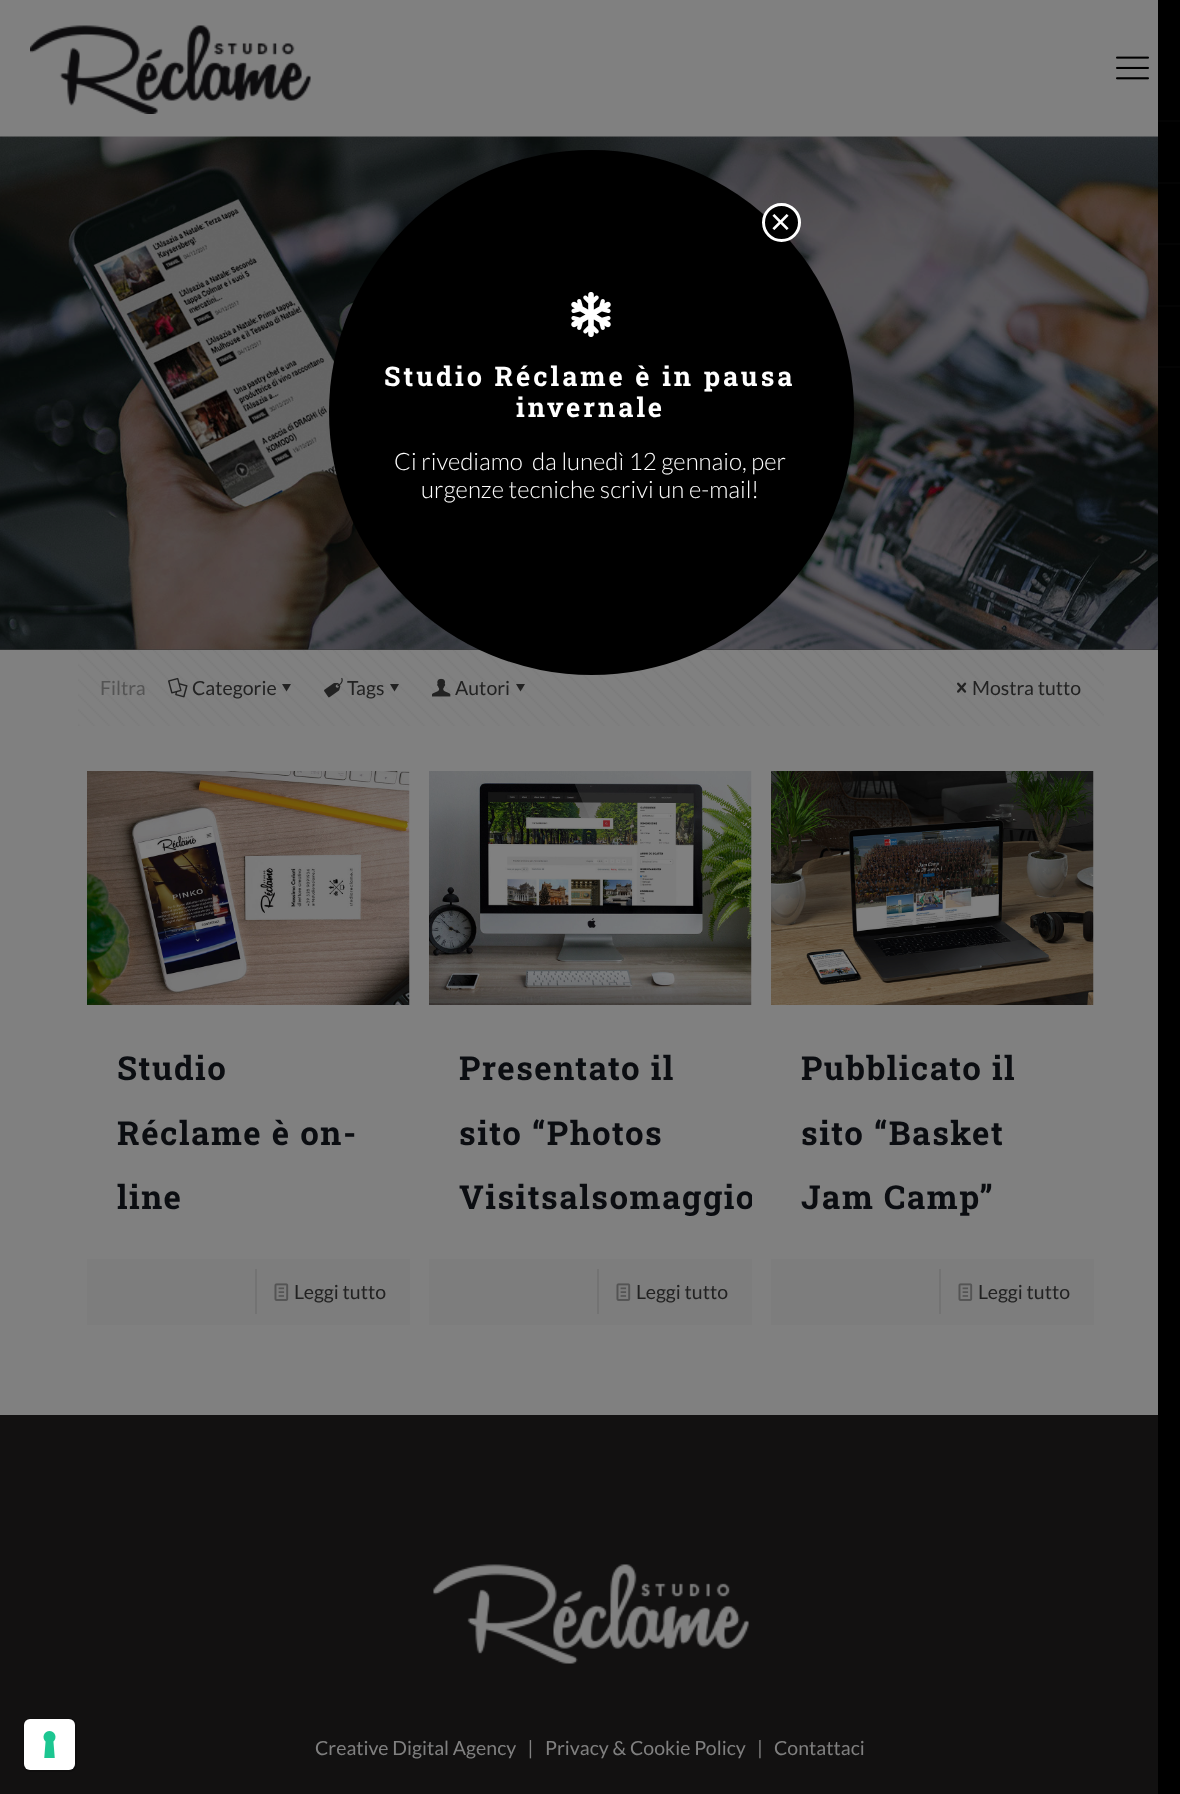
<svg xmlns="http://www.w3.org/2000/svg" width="1180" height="1794">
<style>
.a{font:36px Liberation Sans;fill:#fff}
.b{font:bold 27px Roboto Slab;letter-spacing:3px;fill:#fff}
.c{font:300 24px Lato;fill:#fff}
.d{font:19.5px Lato;fill:#545454}
.e{font:19.5px Lato;fill:#222}
.f{font:bold 33px Roboto Slab;letter-spacing:1.5px;fill:#0b0d11}
.g{font:19.5px Lato;fill:#808080}
</style>
<defs>
<clipPath id="clip1"><path d="M429 771h323v554H429z"/></clipPath>
</defs>
<rect width="100%" height="100%" fill="#808080"/>
<path fill="#393939" d="M0 649h1158v1H0z"/>
<image href="5.png" x="0" y="136" width="1158" height="514"/>
<image href="6.png" x="78" y="650" width="1026" height="76"/>
<circle fill="#000" cx="591.5" cy="412.5" r="262.5"/>
<circle fill="#000" stroke="#fff" stroke-width="3" cx="781.5" cy="222.5" r="18"/>
<image href="1.png" x="571" y="292" width="40" height="45"/>
<path fill="#000" d="M1158 0h22v1794H1158z"/>
<path fill="#040404" d="M1158 120h22v2H1158z"/>
<path fill="#040404" d="M1158 182h22v2H1158z"/>
<path fill="#040404" d="M1158 243h22v2H1158z"/>
<path fill="#040404" d="M1158 305h22v2H1158z"/>
<path fill="#040404" d="M1158 366h22v2H1158z"/>
<path fill="#121111" d="M0 1415h1158v379H0z"/>
<rect fill="none" stroke="#0f0e0e" stroke-width="2" x="24" y="1719" width="52" height="52" rx="7"/>
<rect fill="#fff" x="24" y="1719" width="51" height="51" rx="6"/>
<image href="2.png" x="43" y="1731" width="13" height="27"/>
<image href="3.png" x="30" y="25" width="281" height="89"/>
<image href="4.png" x="1116" y="56" width="33" height="24"/>
<image href="7.png" x="168" y="677" width="20" height="21"/>
<path fill="#222" d="M291 684l-4.5 7.5l-4.5-7.5z"/>
<image href="8.png" x="324" y="677" width="19" height="21"/>
<path fill="#222" d="M399 684l-4.5 7.5l-4.5-7.5z"/>
<image href="9.png" x="432" y="678" width="19" height="19"/>
<path fill="#222" d="M525 684l-4.5 7.5l-4.5-7.5z"/>
<image href="10.png" x="957" y="682" width="10" height="11"/>
<image href="11.png" x="87" y="771" width="323" height="234"/>
<path fill="#7d7d7d" d="M87 1259h323v66H87z"/>
<path fill="#737373" d="M255 1269h2v45H255z"/>
<image href="12.png" x="274" y="1283" width="15" height="18"/>
<image href="13.png" x="429" y="771" width="323" height="234"/>
<path fill="#7d7d7d" d="M429 1259h323v66H429z"/>
<path fill="#737373" d="M597 1269h2v45H597z"/>
<image href="12.png" x="616" y="1283" width="15" height="18"/>
<image href="14.png" x="771" y="771" width="323" height="234"/>
<path fill="#7d7d7d" d="M771 1259h323v66H771z"/>
<path fill="#737373" d="M939 1269h2v45H939z"/>
<image href="12.png" x="958" y="1283" width="15" height="18"/>
<image href="15.png" x="433" y="1564" width="316" height="100"/>
<text class="a" x="770" y="234">×</text>
<text class="b" x="384" y="386">Studio Réclame è in pausa</text>
<text class="b" x="516" y="417">invernale</text>
<text class="c" xml:space="preserve" x="394" y="470">Ci rivediamo  da lunedì 12 gennaio, per</text>
<text class="c" x="421" y="498">urgenze tecniche scrivi un e-mail!</text>
<text class="d" x="100" y="695">Filtra</text>
<text class="e" x="192" y="695">Categorie</text>
<text class="e" x="347" y="695">Tags</text>
<text class="e" x="455" y="695">Autori</text>
<text class="e" x="972" y="695">Mostra tutto</text>
<text class="f" x="117" y="1080">Studio</text>
<text class="f" x="117" y="1145">Réclame è on-</text>
<text class="f" x="117" y="1209">line</text>
<text class="e" x="294" y="1299">Leggi tutto</text>
<text class="f" x="459" y="1080">Presentato il</text>
<text class="f" x="459" y="1145">sito “Photos</text>
<g clip-path="url(#clip1)">
<text class="f" x="459" y="1209">Visitsalsomaggio</text>
</g>
<text class="e" x="636" y="1299">Leggi tutto</text>
<text class="f" x="801" y="1080">Pubblicato il</text>
<text class="f" x="801" y="1145">sito “Basket</text>
<text class="f" x="801" y="1209">Jam Camp”</text>
<text class="e" x="978" y="1299">Leggi tutto</text>
<text class="g" xml:space="preserve" x="315" y="1755">Creative Digital Agency   |</text>
<text class="g" x="545" y="1755">Privacy &amp; Cookie Policy</text>
<text class="g" x="757" y="1755">|</text>
<text class="g" x="774" y="1755">Contattaci</text>
</svg>
